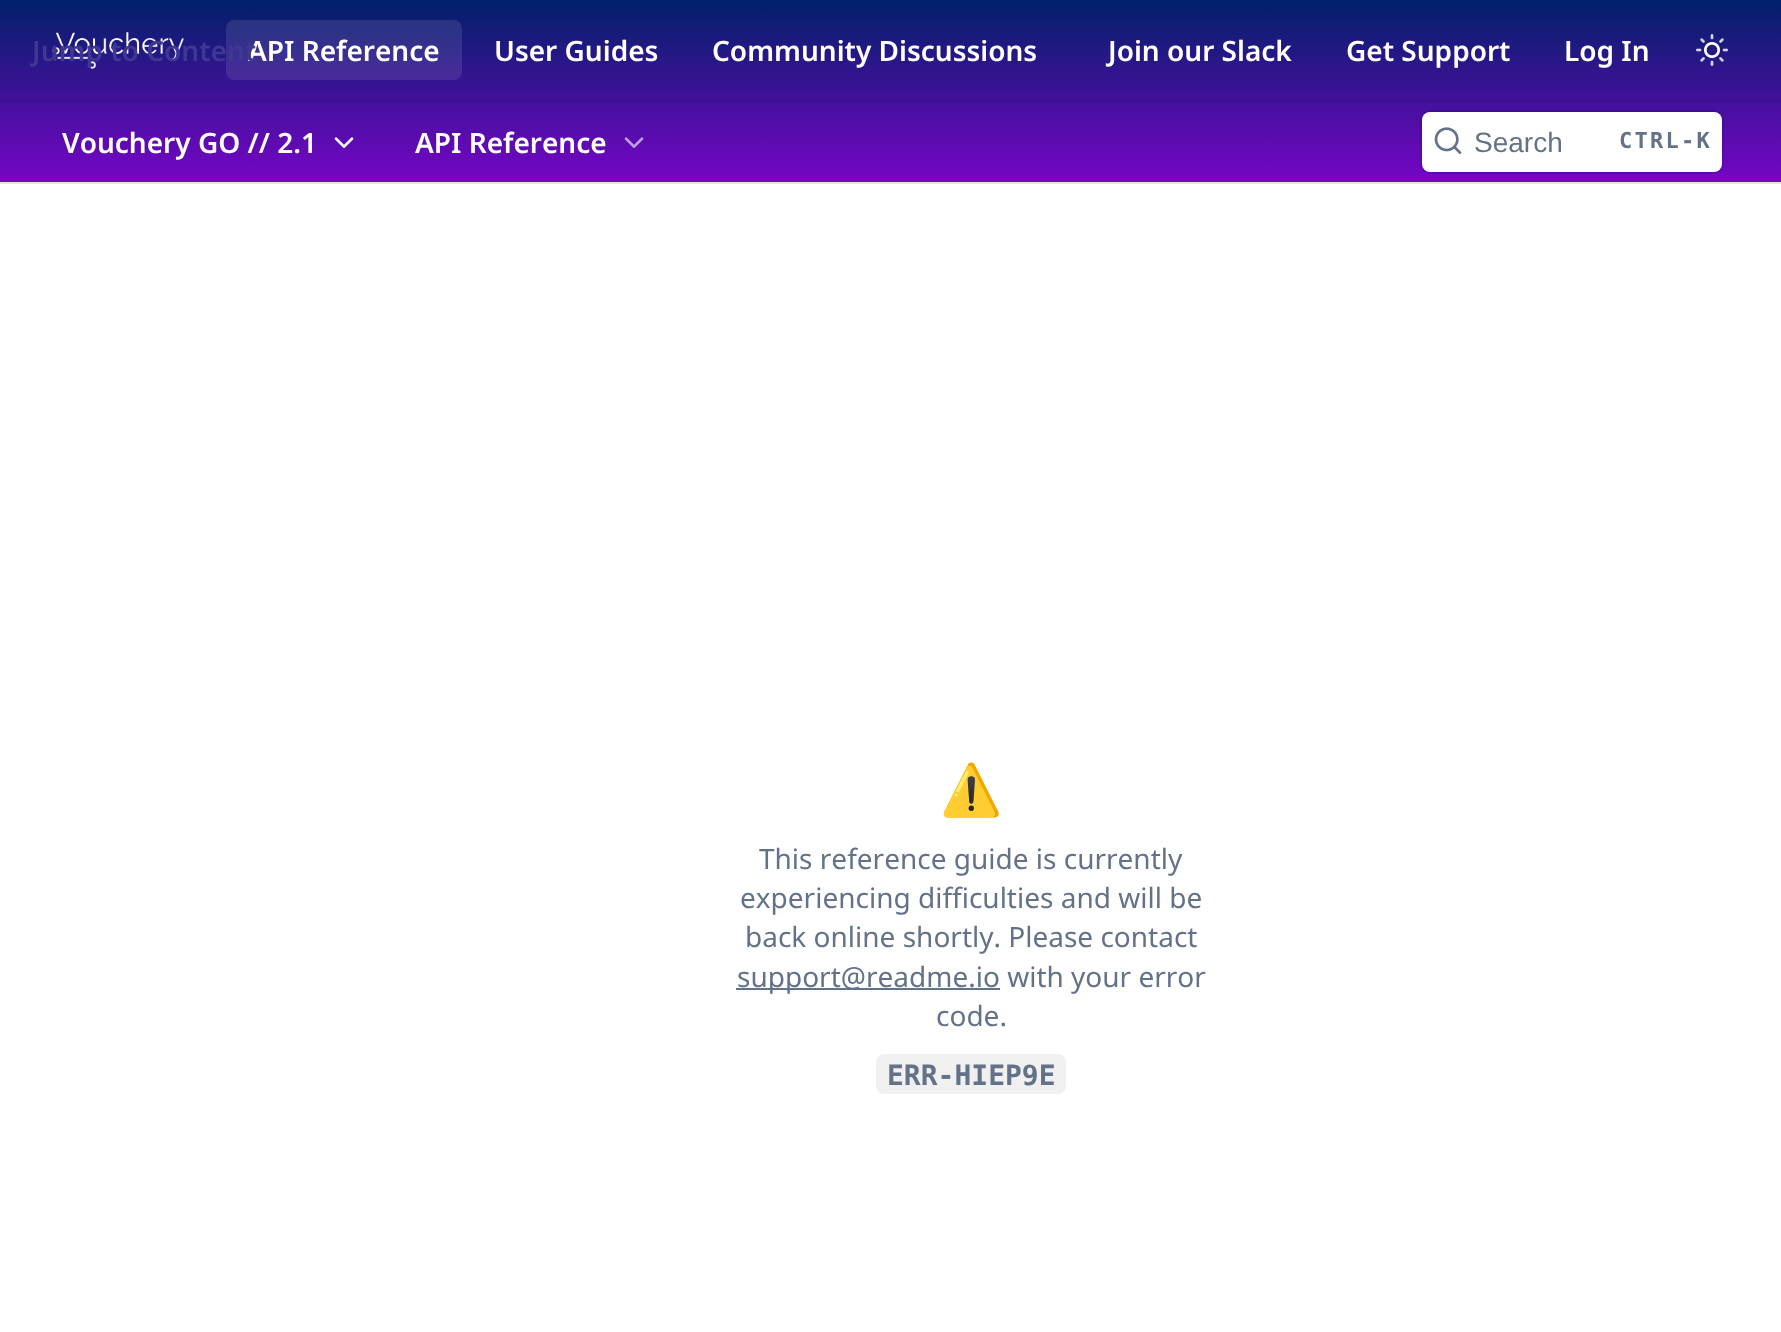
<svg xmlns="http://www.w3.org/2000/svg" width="1781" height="1332">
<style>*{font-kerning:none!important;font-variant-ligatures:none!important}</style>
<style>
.a{font:600 28px Noto Sans;fill:#fff}
.b{font:600 28px Noto Sans;fill:#403794}
.c{font:28px Liberation Sans;fill:#637288}
.d{font:bold 22px DejaVu Sans Mono;letter-spacing:2.25px;fill:#637288}
.e{font:50px Noto Color Emoji;fill:#384248}
.f{font:28px Noto Sans;fill:#637288}
.g{font:bold 28px DejaVu Sans Mono;fill:#637288}
</style>
<defs>
<linearGradient id="g1" gradientUnits="userSpaceOnUse" x1="891" y1="0" x2="891" y2="182"><stop offset="0" stop-color="#012068"/><stop offset="1" stop-color="#7705c6"/></linearGradient>
</defs>
<rect width="100%" height="100%" fill="#fff"/>
<path fill="#e6e6e6" d="M0 182h1781v2H0z"/>
<path fill="url(#g1)" d="M0 0h1781v182H0z"/>
<path fill="#3c0f8c" d="M0 100h1781v2H0z"/>
<image href="1.png" x="52" y="32" width="132" height="37"/>
<rect fill="#ffffff1a" x="226" y="20" width="236" height="60" rx="8"/>
<image href="2.png" x="1696" y="34" width="32" height="32"/>
<image href="3.png" x="334" y="137" width="20" height="11"/>
<image href="4.png" x="624" y="137" width="20" height="11"/>
<rect fill="none" stroke="#0000001a" stroke-width="2" x="1421" y="111" width="302" height="62" rx="9"/>
<rect fill="#fff" x="1422" y="112" width="300" height="60" rx="8"/>
<image href="5.png" x="1434" y="127" width="28" height="27"/>
<path fill="#637288" d="M736 988h264v2H736z"/>
<rect fill="#f0f0f0" x="876" y="1054" width="190" height="40" rx="8"/>
<text class="a" x="248" y="61">API Reference</text>
<text class="b" x="32" y="61">Jump to Content</text>
<text class="a" x="494" y="61">User Guides</text>
<text class="a" x="712" y="61">Community Discussions</text>
<text class="a" x="1108" y="61">Join our Slack</text>
<text class="a" x="1346" y="61">Get Support</text>
<text class="a" x="1564" y="61">Log In</text>
<text class="a" x="62" y="153">Vouchery GO // 2.1</text>
<text class="a" x="415" y="153">API Reference</text>
<text class="c" x="1474" y="152">Search</text>
<text class="d" x="1619" y="148">CTRL-K</text>
<text class="e" x="940" y="807">⚠️</text>
<text class="f" x="759" y="869">This reference guide is currently</text>
<text class="f" x="740" y="908">experiencing difficulties and will be</text>
<text class="f" x="745" y="947">back online shortly. Please contact</text>
<text class="f" x="737" y="987">support@readme.io with your error</text>
<text class="f" x="936" y="1026">code.</text>
<text class="g" x="887" y="1085">ERR-HIEP9E</text>
</svg>
